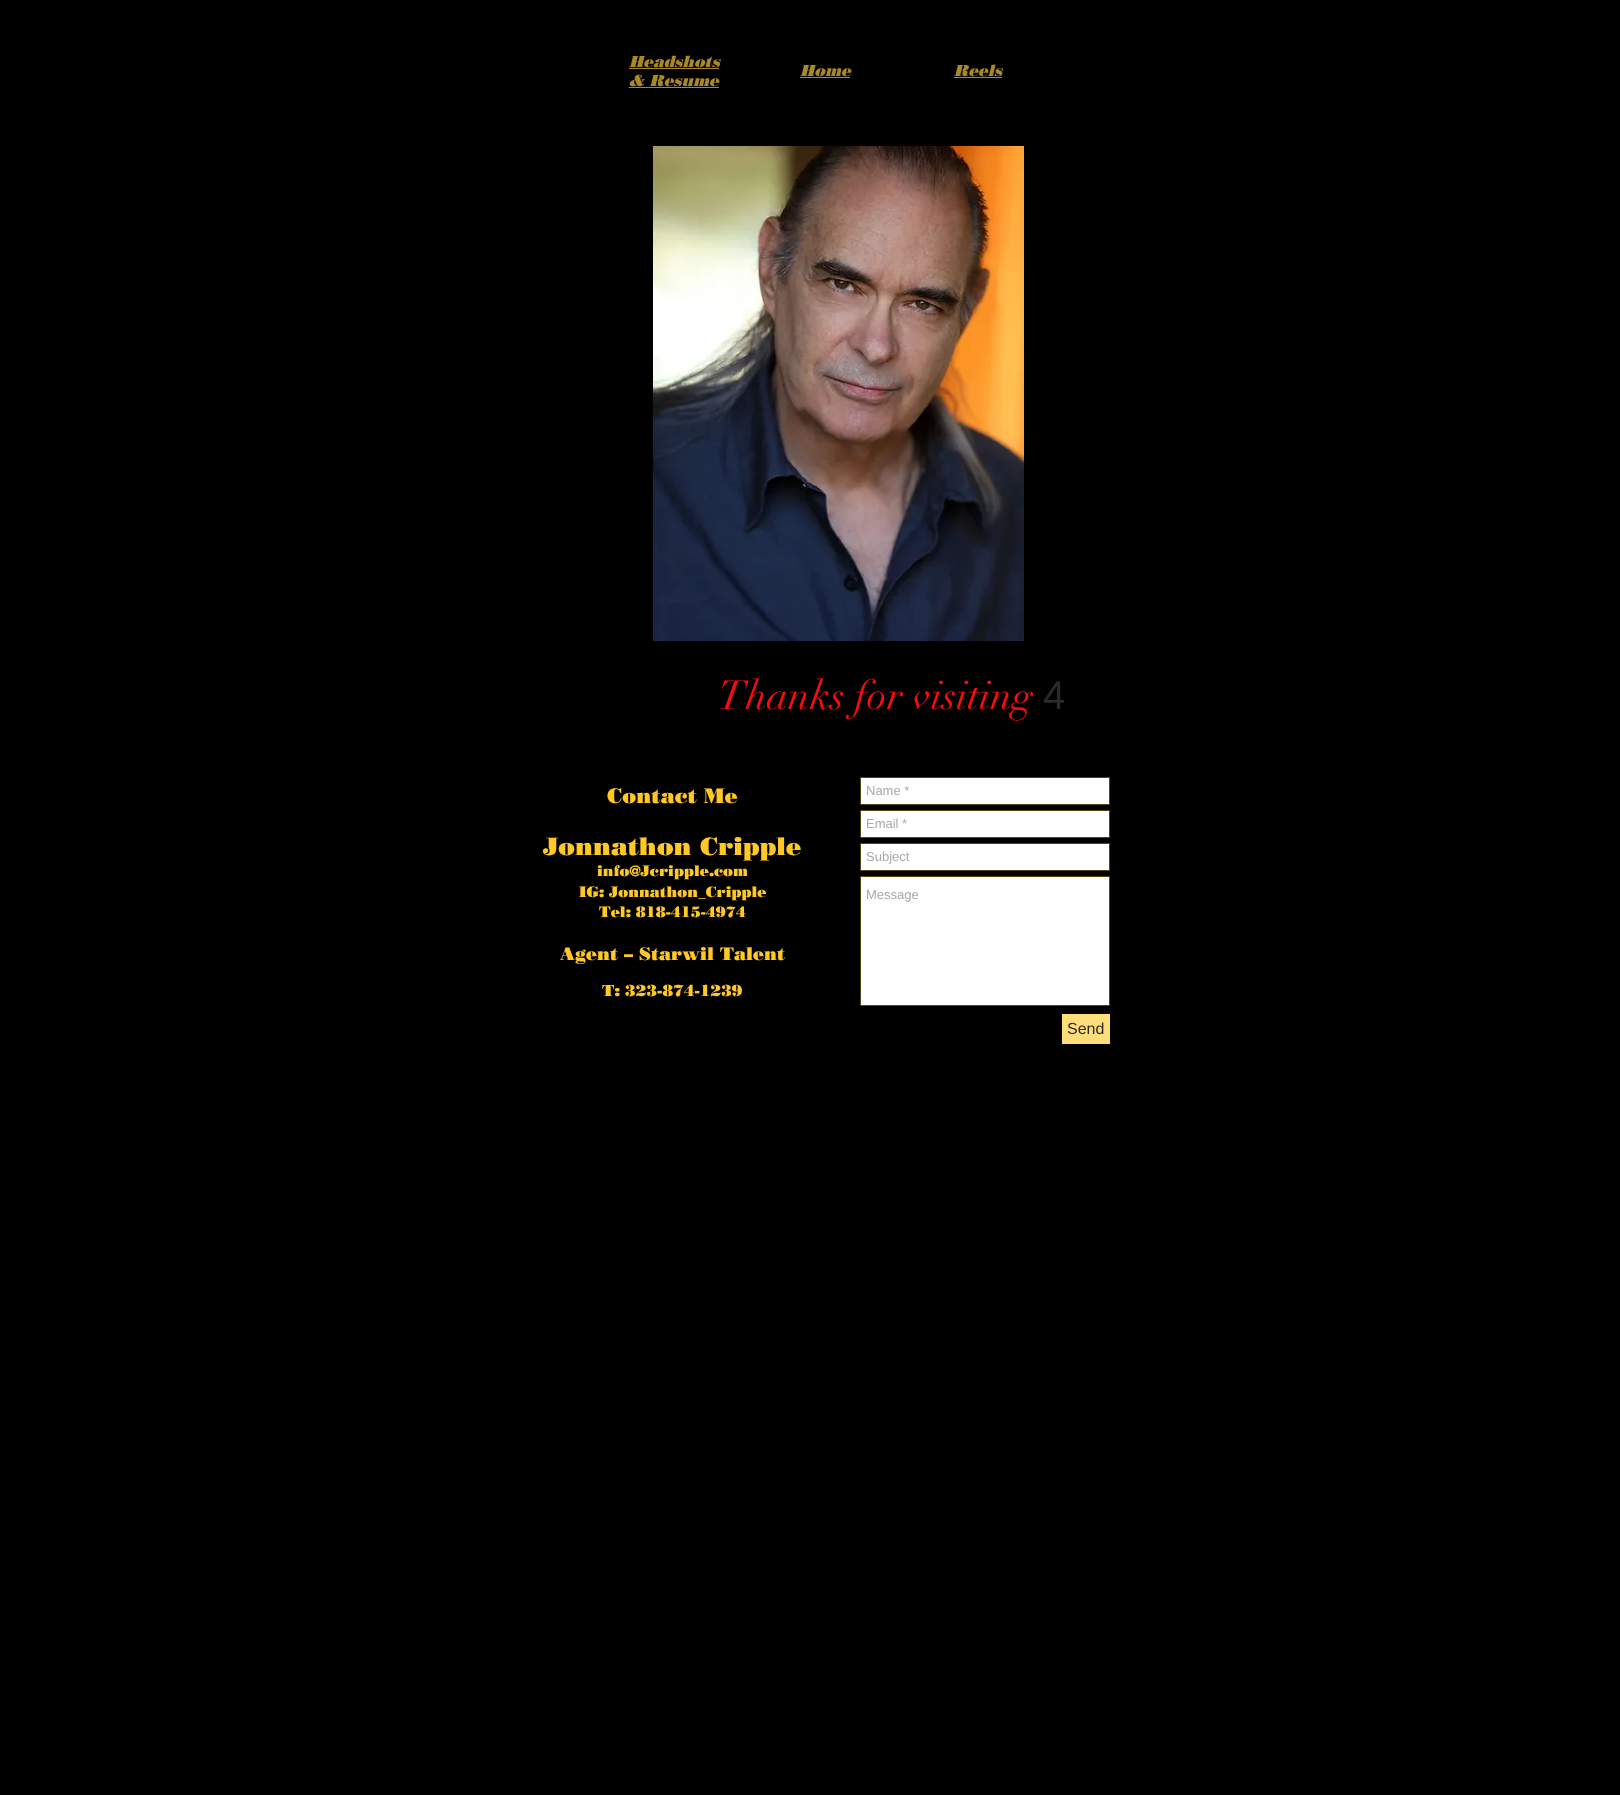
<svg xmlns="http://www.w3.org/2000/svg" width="1620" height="1795">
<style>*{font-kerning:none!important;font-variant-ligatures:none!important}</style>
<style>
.a{font:italic 900 16px 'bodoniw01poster';fill:#aa8924}
.b{font:40px didot;fill:#fa0c0c}
.c{font:40px Liberation Sans;fill:#2a2a2a}
.d{font:900 21px 'bodoniw01poster';fill:#ffc824}
.e{font:900 25px 'bodoniw01poster';fill:#ffc824}
.f{font:900 15px 'bodoniw01poster';fill:#ffc824}
.g{font:900 18px 'bodoniw01poster';fill:#ffc824}
.h{font:900 16px 'bodoniw01poster';fill:#ffc824}
.i{font:13px Liberation Sans;fill:#a9a9a9}
.j{font:16px Liberation Sans;fill:#2a2a2a}
</style>
<rect width="100%" height="100%" fill="#000"/>
<path fill="#aa8924" d="M629 68h90v1H629z"/>
<path fill="#aa8924" d="M629 87h90v1H629z"/>
<path fill="#aa8924" d="M800 77h50v1H800z"/>
<path fill="#aa8924" d="M954 77h48v1H954z"/>
<image href="1.png" x="653" y="146" width="371" height="495"/>
<path fill="#fff" stroke="#554412" d="M860.5 777.5h249v27H860.5z"/>
<path fill="#fff" stroke="#554412" d="M860.5 810.5h249v27H860.5z"/>
<path fill="#fff" stroke="#554412" d="M860.5 843.5h249v27H860.5z"/>
<path fill="#fff" stroke="#554412" d="M860.5 876.5h249v129H860.5z"/>
<path fill="#ffde7a" d="M1062 1014h48v30H1062z"/>
<text class="a" x="629" y="67">Headshots</text>
<text class="a" x="629" y="86">&amp; Resume</text>
<text class="a" x="800" y="76">Home</text>
<text class="a" x="954" y="76">Reels</text>
<text class="b" x="718" y="709">Thanks for visiting</text>
<text class="c" x="1043" y="709">4</text>
<text class="d" x="607" y="803">Contact Me</text>
<text class="e" x="543" y="855">Jonnathon Cripple</text>
<text class="f" x="597" y="876">info@Jcripple.com</text>
<text class="f" x="579" y="897">IG: Jonnathon_Cripple</text>
<text class="f" x="599" y="917">Tel: 818-415-4974</text>
<text class="g" x="560" y="960">Agent – Starwil Talent</text>
<text class="h" x="602" y="996">T: 323-874-1239</text>
<text class="i" x="866" y="795">Name *</text>
<text class="i" x="866" y="828">Email *</text>
<text class="i" x="866" y="861">Subject</text>
<text class="i" x="866" y="899">Message</text>
<text class="j" x="1067" y="1034">Send</text>
</svg>
